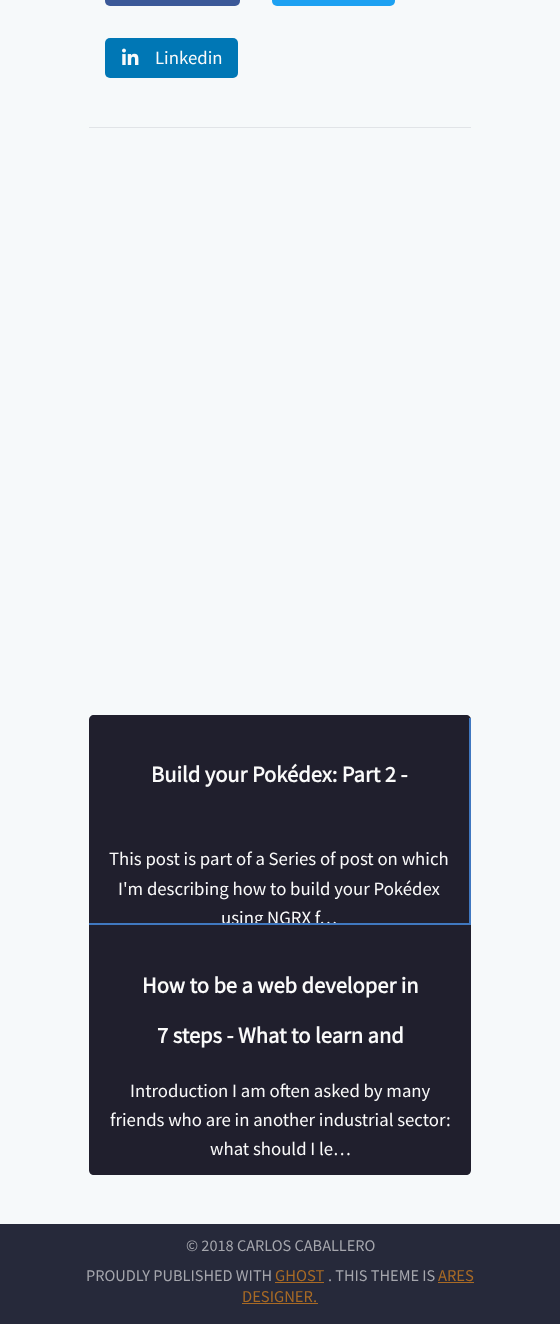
<svg xmlns="http://www.w3.org/2000/svg" width="560" height="1324">
<style>
.a{font:18.75px Source Sans Pro;fill:#fafafa}
.b{font:bold 22.5px Source Sans Pro;fill:#fafafa}
.c{font:16.25px Source Sans Pro;fill:#a5a6ad}
.d{font:16.5px Source Sans Pro;fill:#a86a25}
</style>
<defs>
<clipPath id="clip1"><path d="M89 828h380v95H89z"/></clipPath>
</defs>
<rect width="100%" height="100%" fill="#f6f9fa"/>
<path fill="#e1e4e7" d="M89 127h382v1H89z"/>
<rect fill="#3b5998" x="105" y="-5" width="135" height="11" rx="5"/>
<rect fill="#1da1f2" x="272" y="-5" width="123" height="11" rx="5"/>
<rect fill="#0077b5" x="105" y="38" width="133" height="40" rx="5"/>
<image href="1.png" x="122" y="48" width="17" height="17"/>
<path fill="#201f2d" d="M94 715h372c3 0 5 2 5 5v205h-382v-205c0-3 2-5 5-5z"/>
<path fill="#4078c0" d="M469 718h2v207H469z"/>
<path fill="#4078c0" d="M89 923h382v2H89z"/>
<path fill="#201f2d" d="M89 925h382v245c0 3-2 5-5 5h-372c-3 0-5-2-5-5z"/>
<path fill="#26293a" d="M0 1224h560v100H0z"/>
<path fill="#a86a25" d="M275 1282h49v1H275z"/>
<path fill="#a86a25" d="M438 1282h36v1H438z"/>
<path fill="#a86a25" d="M242 1303h76v1H242z"/>
<text class="a" x="155" y="64">Linkedin</text>
<text class="b" x="151" y="782">Build your Pokédex: Part 2 -</text>
<text class="a" x="109" y="865">This post is part of a Series of post on which</text>
<text class="a" x="118" y="895">I'm describing how to build your Pokédex</text>
<g clip-path="url(#clip1)">
<text class="a" x="221" y="924">using NGRX f…</text>
</g>
<text class="b" x="142" y="993">How to be a web developer in</text>
<text class="b" x="157" y="1043">7 steps - What to learn and</text>
<text class="a" x="130" y="1097">Introduction I am often asked by many</text>
<text class="a" x="110" y="1126">friends who are in another industrial sector:</text>
<text class="a" x="210" y="1155">what should I le…</text>
<text class="c" x="186" y="1251">© 2018 CARLOS CABALLERO</text>
<text class="c" x="86" y="1281">PROUDLY PUBLISHED WITH</text>
<text class="d" x="275" y="1281">GHOST</text>
<text class="c" x="328" y="1281">. THIS THEME IS</text>
<text class="d" x="438" y="1281">ARES</text>
<text class="d" x="242" y="1302">DESIGNER.</text>
</svg>
